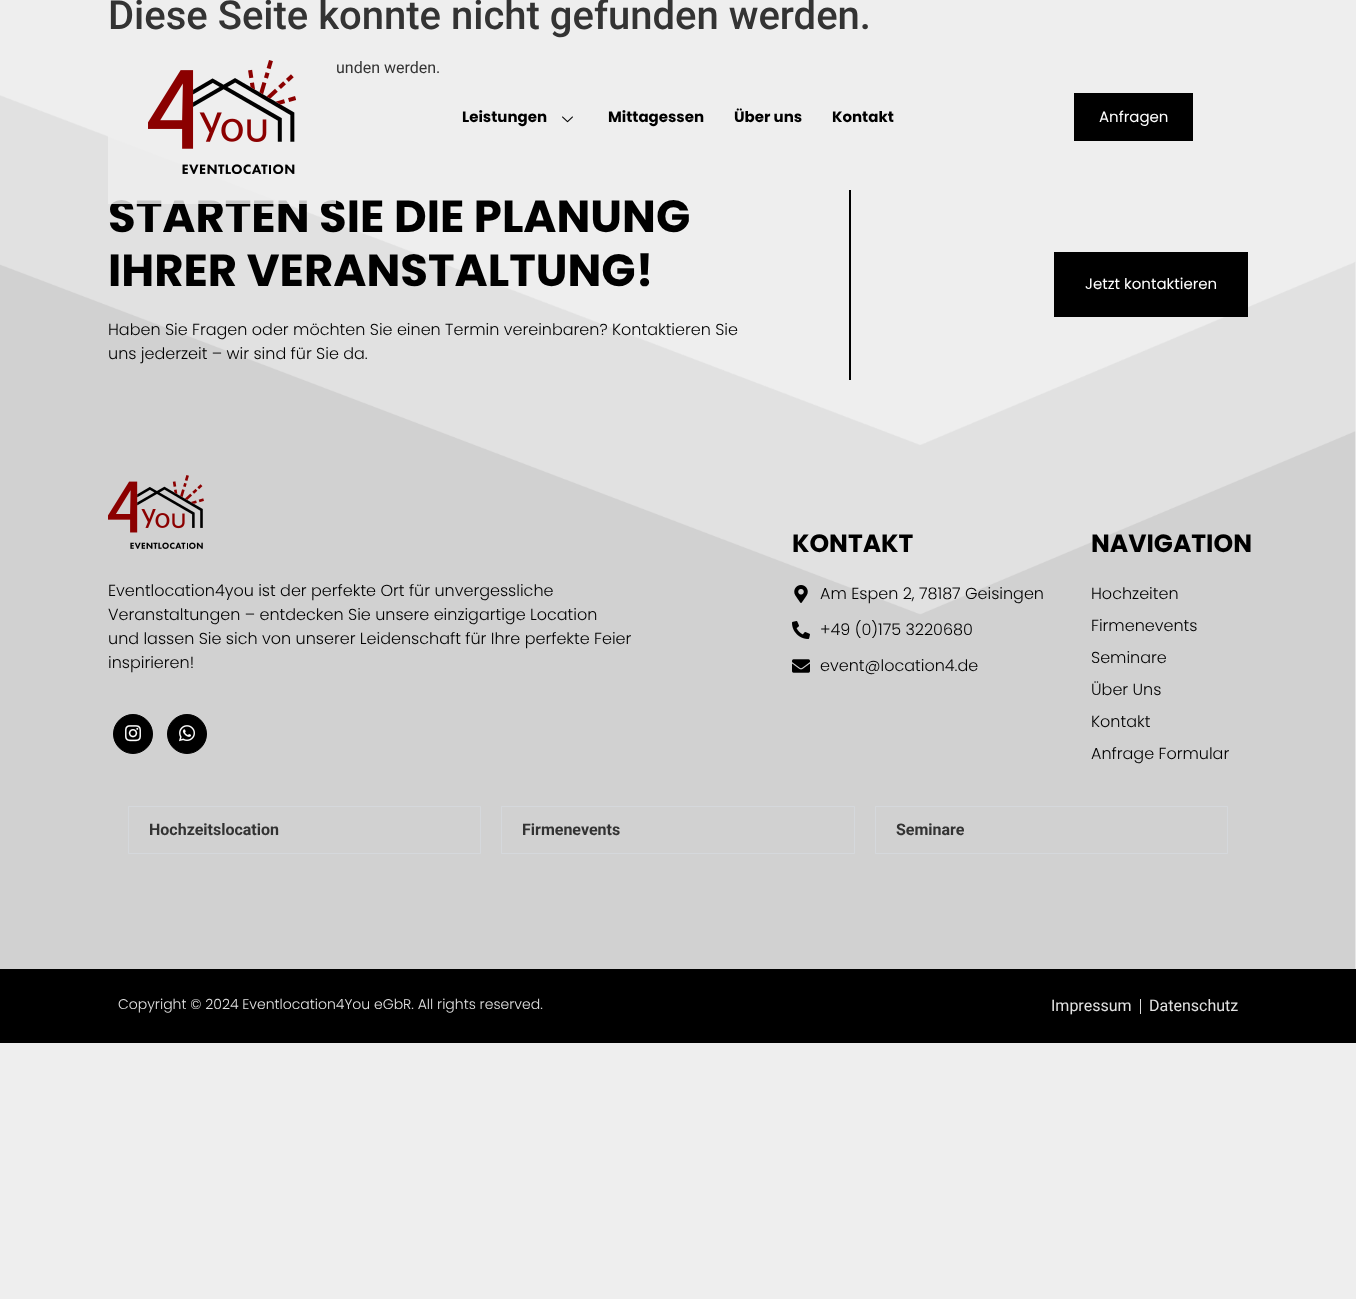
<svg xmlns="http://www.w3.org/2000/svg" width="1356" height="1299">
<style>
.a{font:500 40px Roboto;fill:#333}
.b{font:16px Roboto;fill:#333}
.c{font:bold 15px Poppins;fill:#000}
.d{font:15px Poppins;fill:#fff}
.e{font:bold 45px Poppins;fill:#000}
.f{font:300 16px Poppins;fill:#000}
.g{font:bold 25px Poppins;fill:#000}
.h{font:bold 16px Roboto;fill:#333}
.i{font:300 14px Poppins;fill:#e1e1e1}
.j{font:16px Roboto;fill:#e1e1e1}
</style>
<rect width="100%" height="100%" fill="#eee"/>
<image href="3.png" x="0" y="95" width="1356" height="874"/>
<image href="2.png" x="562" y="116" width="11" height="7"/>
<path fill="#000" d="M1074 93h119v48H1074z"/>
<path fill="#000" d="M849 190h2v190H849z"/>
<path fill="#000" d="M1054 252h194v65H1054z"/>
<image href="4.png" x="108" y="475" width="96" height="74"/>
<circle fill="#000" stroke="#000" cx="133" cy="734" r="19.5"/>
<image href="5.png" x="125" y="725" width="16" height="17"/>
<circle fill="#000" stroke="#000" cx="187" cy="734" r="19.5"/>
<image href="6.png" x="179" y="725" width="16" height="17"/>
<image href="7.png" x="794" y="585" width="14" height="18"/>
<image href="8.png" x="792" y="621" width="18" height="18"/>
<image href="9.png" x="792" y="659" width="18" height="14"/>
<path fill="none" stroke="#d5d8dc" d="M128.5 806.5h352v47H128.5z"/>
<path fill="none" stroke="#d5d8dc" d="M501.5 806.5h353v47H501.5z"/>
<path fill="none" stroke="#d5d8dc" d="M875.5 806.5h352v47H875.5z"/>
<path fill="#000" d="M0 969h1356v74H0z"/>
<path fill="#ddd" d="M1140 999h1v15H1140z"/>
<text class="a" x="108" y="29">Diese Seite konnte nicht gefunden werden.</text>
<text class="b" x="336" y="73">unden werden.</text>
<text class="c" x="462" y="122">Leistungen</text>
<text class="c" x="608" y="122">Mittagessen</text>
<text class="c" x="734" y="122">Über uns</text>
<text class="c" x="832" y="122">Kontakt</text>
<text class="d" x="1099" y="122">Anfragen</text>
<text class="e" x="108" y="232">STARTEN SIE DIE PLANUNG</text>
<path fill="#eeeeeed4" d="M108 136h228v68H108z"/>
<image href="1.png" x="148" y="60" width="148" height="114"/>
<text class="e" x="108" y="286">IHRER VERANSTALTUNG!</text>
<text class="f" x="108" y="335">Haben Sie Fragen oder möchten Sie einen Termin vereinbaren? Kontaktieren Sie</text>
<text class="f" x="108" y="359">uns jederzeit – wir sind für Sie da.</text>
<text class="d" x="1085" y="289">Jetzt kontaktieren</text>
<text class="f" x="108" y="596">Eventlocation4you ist der perfekte Ort für unvergessliche</text>
<text class="f" x="108" y="620">Veranstaltungen – entdecken Sie unsere einzigartige Location</text>
<text class="f" x="108" y="644">und lassen Sie sich von unserer Leidenschaft für Ihre perfekte Feier</text>
<text class="f" x="108" y="668">inspirieren!</text>
<text class="g" x="792" y="552">KONTAKT</text>
<text class="f" x="820" y="599">Am Espen 2, 78187 Geisingen</text>
<text class="f" x="820" y="635">+49 (0)175 3220680</text>
<text class="f" x="820" y="671">event@location4.de</text>
<text class="g" x="1091" y="552">NAVIGATION</text>
<text class="f" x="1091" y="599">Hochzeiten</text>
<text class="f" x="1091" y="631">Firmenevents</text>
<text class="f" x="1091" y="663">Seminare</text>
<text class="f" x="1091" y="695">Über Uns</text>
<text class="f" x="1091" y="727">Kontakt</text>
<text class="f" x="1091" y="759">Anfrage Formular</text>
<text class="h" x="149" y="835">Hochzeitslocation</text>
<text class="h" x="522" y="835">Firmenevents</text>
<text class="h" x="896" y="835">Seminare</text>
<text class="i" x="118" y="1009">Copyright © 2024 Eventlocation4You eGbR. All rights reserved.</text>
<text class="j" x="1051" y="1011">Impressum</text>
<text class="j" x="1149" y="1011">Datenschutz</text>
</svg>
